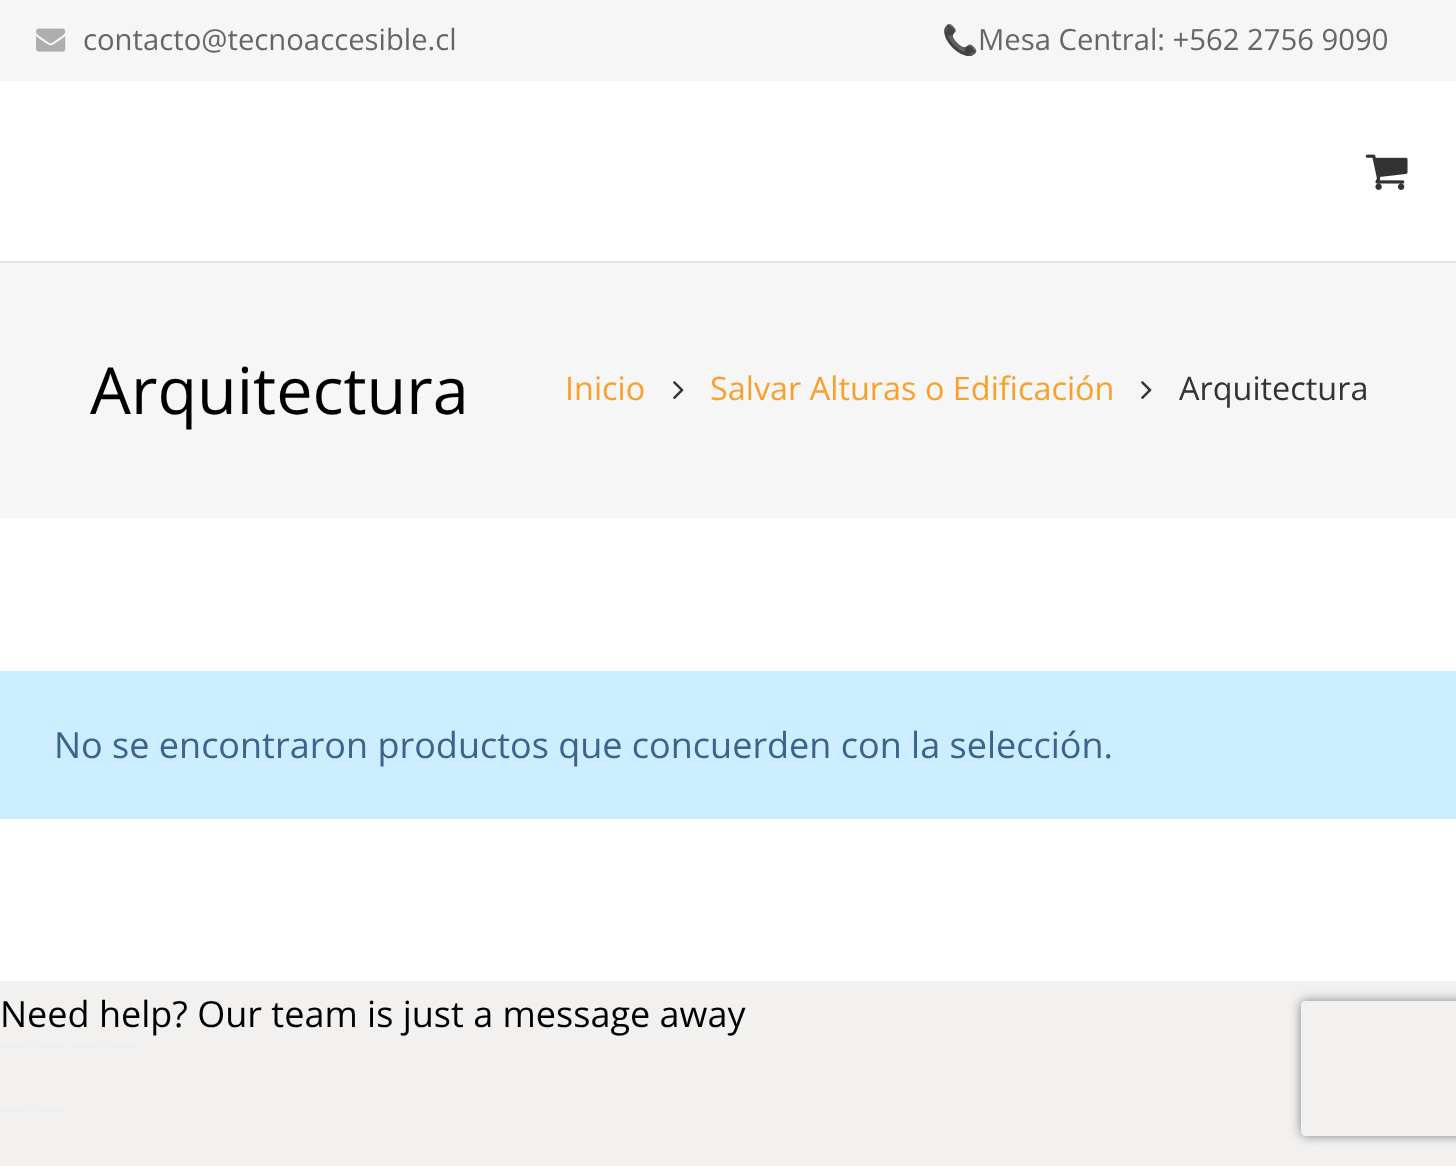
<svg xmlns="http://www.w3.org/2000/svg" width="1456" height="1166">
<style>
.a{font:29.25px Open Sans;fill:#666}
.b{font:29.25px Noto Color Emoji;fill:#666}
.c{font:64.75px Open Sans;fill:#000}
.d{font:32.4px Open Sans;fill:#f9a02c}
.e{font:32.4px Open Sans;fill:#333}
.f{font:36px Open Sans;fill:#3a648e}
.g{font:36px Open Sans;fill:#000}
</style>
<defs>
<clipPath id="clip1"><path d="M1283 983h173v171h-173zm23 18h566c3 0 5 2 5 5v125c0 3-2 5-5 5h-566c-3 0-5-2-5-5v-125c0-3 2-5 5-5z" clip-rule="evenodd"/></clipPath>
</defs>
<rect width="100%" height="100%" fill="#f2f1f0"/>
<path fill="#fff" d="M0 518h1456v463H0z"/>
<path fill="#f6f6f6" d="M0 0h1456v518H0z"/>
<image href="1.png" x="36" y="28" width="30" height="24"/>
<path fill="#e2e2e2" d="M0 261h1456v2H0z"/>
<path fill="#fff" d="M0 81h1456v180H0z"/>
<image href="2.png" x="1365" y="154" width="43" height="36"/>
<image href="3.png" x="673" y="381" width="11" height="19"/>
<image href="3.png" x="1141" y="381" width="11" height="19"/>
<path fill="#cef" d="M0 671h1456v148H0z"/>
<g clip-path="url(#clip1)">
<rect fill="#808080" filter="blur(5.5px)" x="1301" y="1001" width="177" height="135" rx="5"/>
</g>
<path fill="#efefef" d="M0 1044h27v5H0z"/>
<path fill="#efefef" d="M36 1044h27v5H36z"/>
<path fill="#efefef" d="M72 1044h27v5H72z"/>
<path fill="#efefef" d="M108 1044h27v5H108z"/>
<path fill="#efefef" d="M0 1107h27v5H0z"/>
<path fill="#efefef" d="M36 1107h27v5H36z"/>
<text class="a" x="83" y="50">contacto@tecnoaccesible.cl</text>
<text class="b" x="942" y="50">📞</text>
<text class="a" x="978" y="50">Mesa Central: +562 2756 9090</text>
<text class="c" x="90" y="414">Arquitectura</text>
<text class="d" x="565" y="400">Inicio</text>
<text class="d" x="710" y="400">Salvar Alturas o Edificación</text>
<text class="e" x="1179" y="400">Arquitectura</text>
<text class="f" x="54" y="758">No se encontraron productos que concuerden con la selección.</text>
<text class="g" x="0" y="1027">Need help? Our team is just a message away</text>
</svg>
